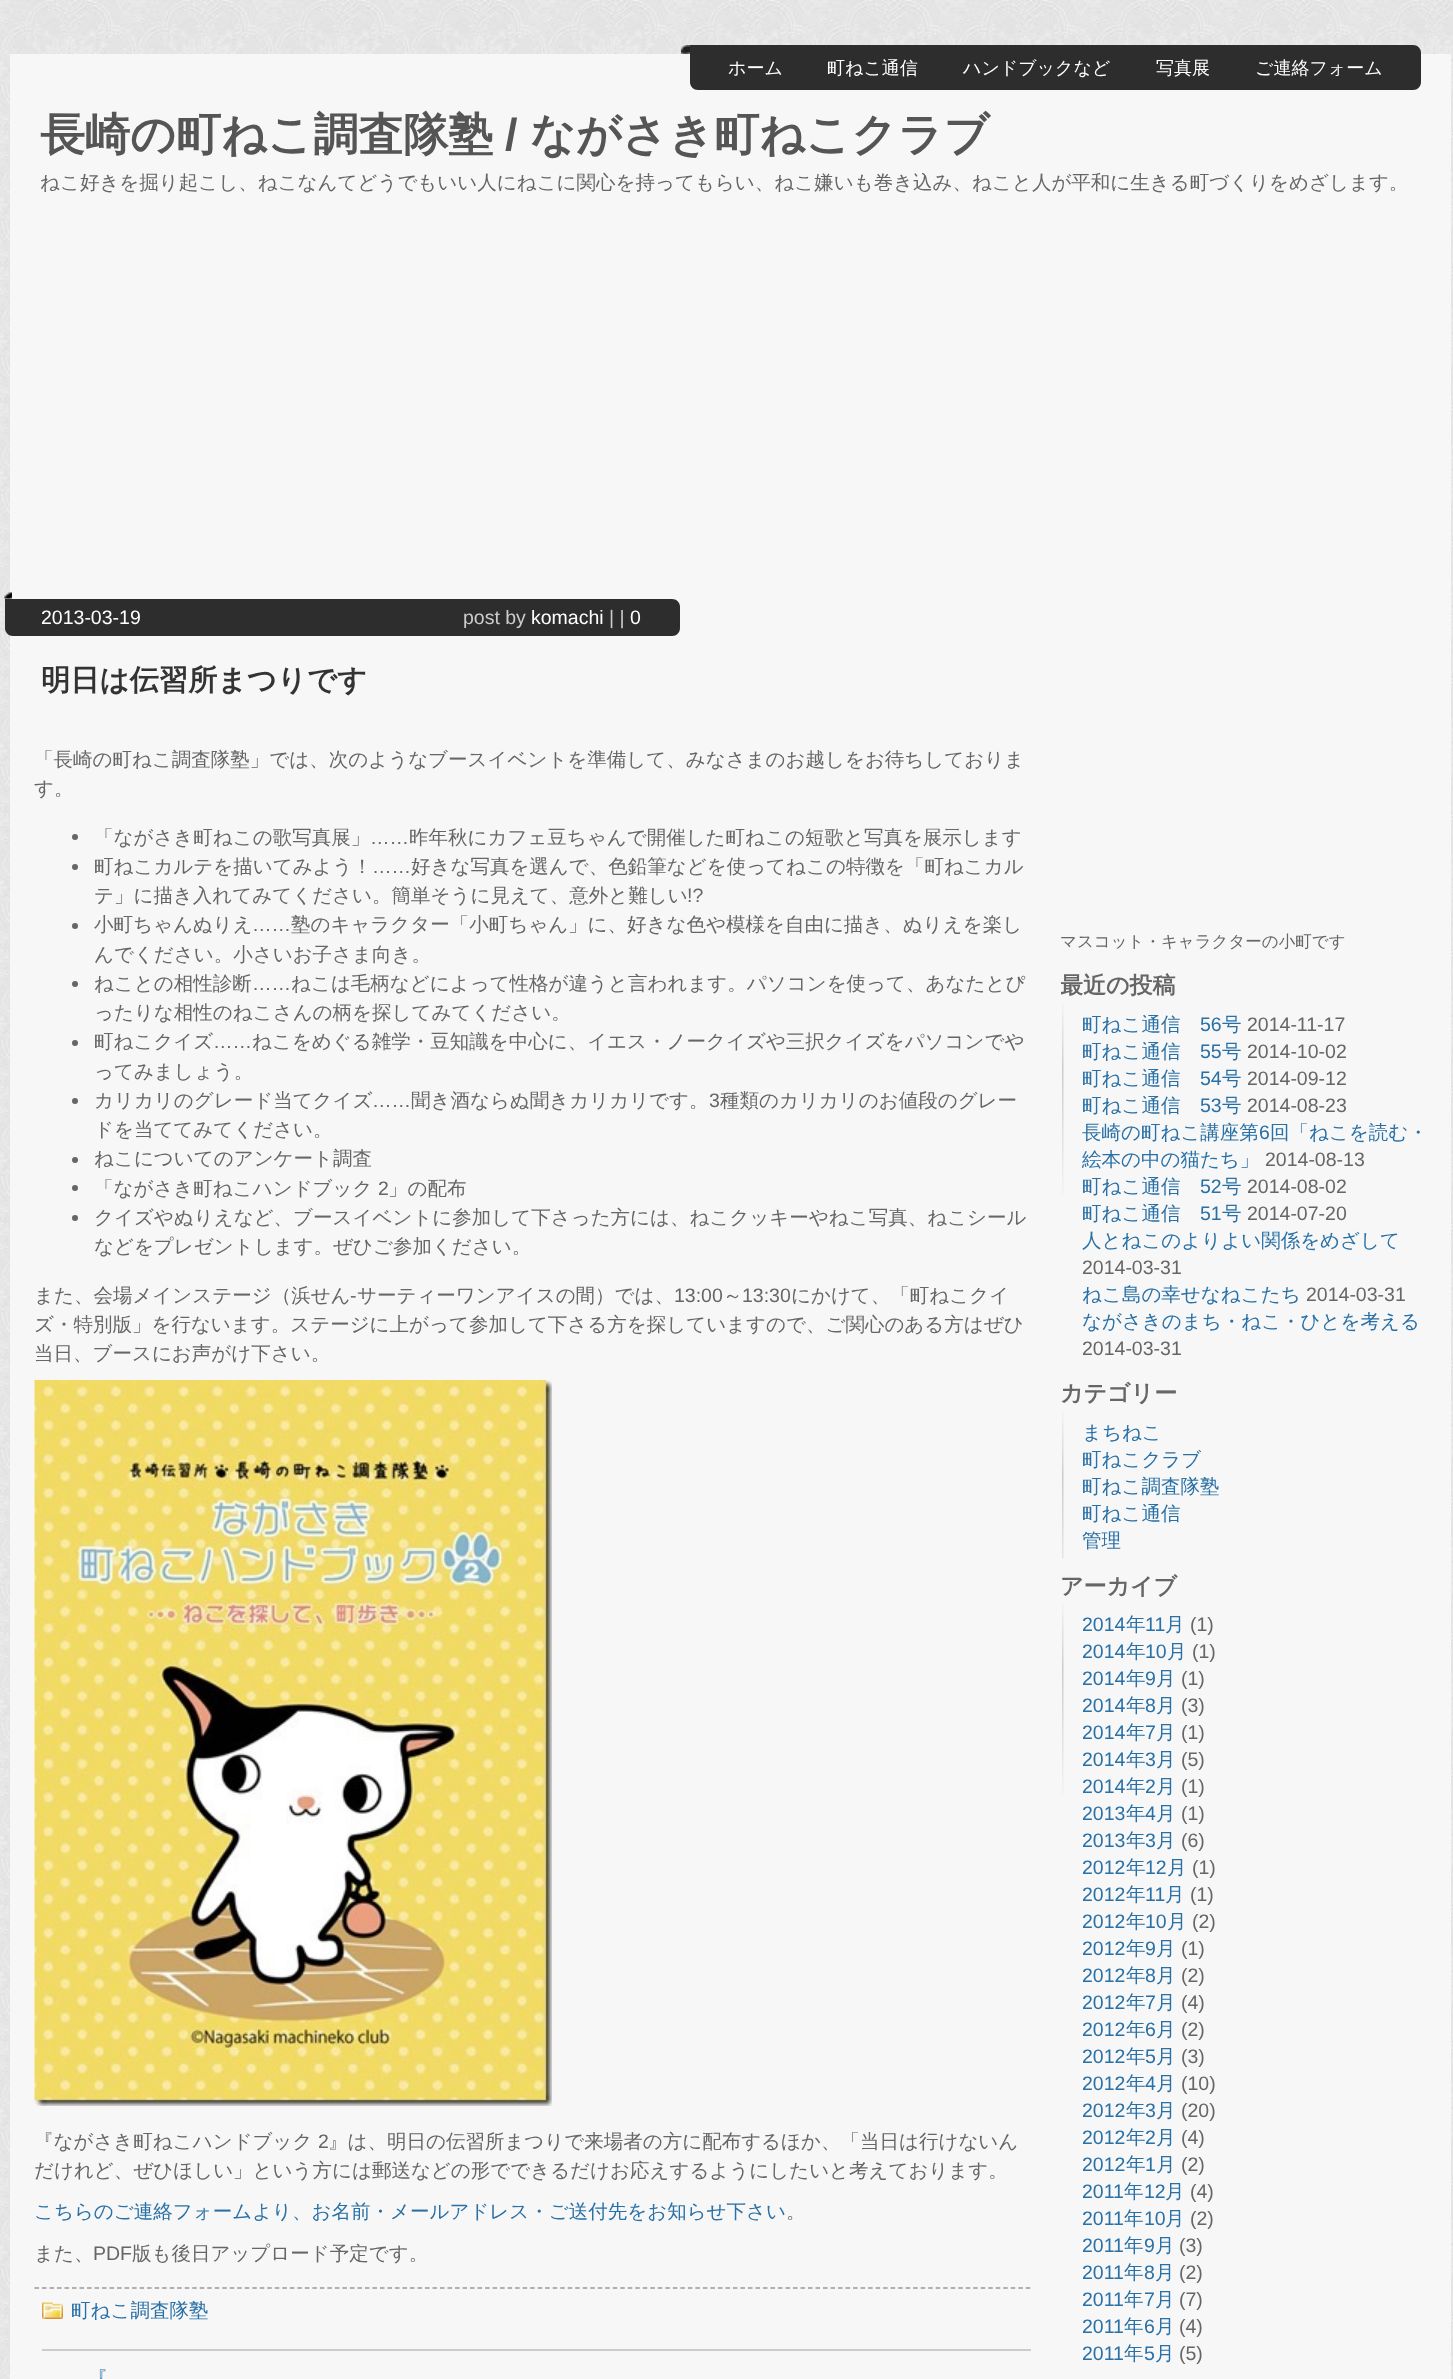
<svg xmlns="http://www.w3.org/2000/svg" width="1453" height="2379">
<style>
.a{font:500 18px WenQuanYi Zen Hei;fill:#fff}
.b{font:bold 45px WenQuanYi Zen Hei;fill:#555}
.c{font:bold 45px Liberation Sans;fill:#555}
.d{font:500 19.5px WenQuanYi Zen Hei;fill:#666}
.e{font:19.5px Liberation Sans;fill:#fff}
.f{font:19.5px Liberation Sans;fill:#ccc}
.g{font:bold 29.25px WenQuanYi Zen Hei;fill:#333}
.h{font:19.5px Liberation Sans;fill:#666}
.i{font:500 19.5px WenQuanYi Zen Hei;fill:#2970a6}
.j{font:500 16.5px WenQuanYi Zen Hei;fill:#666}
.k{font:bold 23px WenQuanYi Zen Hei;fill:#666}
.l{font:19.5px Liberation Sans;fill:#2970a6}
</style>
<defs>
<clipPath id="clip1"><path d="M1061 593h375v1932H1061z"/></clipPath>
</defs>
<rect width="100%" height="100%" fill="#fff"/>
<image href="1.png" x="0" y="0" width="1453" height="2379"/>
<path fill="#f7f7f7" d="M10 54h1441v2325H10z"/>
<image href="2.png" x="681" y="45" width="9" height="9"/>
<path fill="#2d2d2d" d="M690 45h723c4.5 0 8 3.5 8 8v29c0 4.5-3.5 8-8 8h-715c-4.5 0-8-3.5-8-8z"/>
<image href="3.png" x="4" y="592" width="8" height="7"/>
<path fill="#2d2d2d" d="M5 599h667c4.5 0 8 3.5 8 8v21c0 4.5-3.5 8-8 8h-659c-4.5 0-8-3.5-8-8z"/>
<path fill="none" stroke="#999" stroke-width="1.5" stroke-dasharray="4.5 3.01" d="M34.5 2288h996"/>
<circle fill="#666" cx="75" cy="837" r="3"/>
<circle fill="#666" cx="75" cy="867" r="3"/>
<circle fill="#666" cx="75" cy="926" r="3"/>
<circle fill="#666" cx="75" cy="984" r="3"/>
<circle fill="#666" cx="75" cy="1043" r="3"/>
<circle fill="#666" cx="75" cy="1101" r="3"/>
<circle fill="#666" cx="75" cy="1160" r="3"/>
<circle fill="#666" cx="75" cy="1188" r="3"/>
<circle fill="#666" cx="75" cy="1218" r="3"/>
<image href="4.png" x="34" y="1380" width="518" height="726"/>
<image href="5.png" x="42" y="2302" width="21" height="17"/>
<path fill="#ccc" d="M42 2349h989v2H42z"/>
<image href="6.png" x="1062" y="1003" width="2" height="192"/>
<image href="7.png" x="1062" y="1411" width="2" height="148"/>
<image href="6.png" x="1062" y="1603" width="2" height="192"/>
<text class="a" x="728" y="74">ホーム</text>
<text class="a" x="827" y="74">町ねこ通信</text>
<text class="a" x="963" y="74">ハンドブックなど</text>
<text class="a" x="1156" y="74">写真展</text>
<text class="a" x="1255" y="74">ご連絡フォーム</text>
<text class="b" x="40" y="150">長崎の町ねこ調査隊塾</text>
<text class="c" x="505" y="150">/</text>
<text class="b" x="530" y="150">ながさき町ねこクラブ</text>
<text class="d" x="40" y="189">ねこ好きを掘り起こし、ねこなんてどうでもいい人にねこに関心を持ってもらい、ねこ嫌いも巻き込み、ねこと人が平和に生きる町づくりをめざします。</text>
<text class="e" x="41" y="624">2013-03-19</text>
<text class="f" x="463" y="624">post by</text>
<text class="e" x="531" y="624">komachi</text>
<text class="f" x="609" y="624">| |</text>
<text class="e" x="630" y="624">0</text>
<text class="g" x="41" y="690">明日は伝習所まつりです</text>
<text class="d" x="34" y="766">「長崎の町ねこ調査隊塾」では、次のようなブースイベントを準備して、みなさまのお越しをお待ちしておりま</text>
<text class="d" x="34" y="795">す。</text>
<text class="d" x="94" y="844">「ながさき町ねこの歌写真展」</text>
<text class="d" x="409" y="844">昨年秋にカフェ豆ちゃんで開催した町ねこの短歌と写真を展示します</text>
<text class="h" x="370" y="844">……</text>
<text class="d" x="94" y="873">町ねこカルテを描いてみよう！</text>
<text class="d" x="411" y="873">好きな写真を選んで、色鉛筆などを使ってねこの特徴を「町ねこカル</text>
<text class="h" x="372" y="873">……</text>
<text class="d" x="94" y="902">テ」に描き入れてみてください。簡単そうに見えて、意外と難しい</text>
<text class="h" x="687" y="902">!?</text>
<text class="d" x="94" y="931">小町ちゃんぬりえ</text>
<text class="d" x="291" y="931">塾のキャラクター「小町ちゃん」に、好きな色や模様を自由に描き、ぬりえを楽し</text>
<text class="h" x="252" y="931">……</text>
<text class="d" x="94" y="961">んでください。小さいお子さま向き。</text>
<text class="d" x="94" y="990">ねことの相性診断</text>
<text class="d" x="291" y="990">ねこは毛柄などによって性格が違うと言われます。パソコンを使って、あなたとぴ</text>
<text class="h" x="252" y="990">……</text>
<text class="d" x="94" y="1019">ったりな相性のねこさんの柄を探してみてください。</text>
<text class="d" x="94" y="1048">町ねこクイズ</text>
<text class="d" x="252" y="1048">ねこをめぐる雑学・豆知識を中心に、イエス・ノークイズや三択クイズをパソコンでや</text>
<text class="h" x="213" y="1048">……</text>
<text class="d" x="94" y="1078">ってみましょう。</text>
<text class="d" x="94" y="1107">カリカリのグレード当てクイズ</text>
<text class="d" x="411" y="1107">聞き酒ならぬ聞きカリカリです。</text>
<text class="h" x="709" y="1107">3</text>
<text class="d" x="720" y="1107">種類のカリカリのお値段のグレー</text>
<text class="h" x="372" y="1107">……</text>
<text class="d" x="94" y="1136">ドを当ててみてください。</text>
<text class="d" x="94" y="1165">ねこについてのアンケート調査</text>
<text class="d" x="94" y="1195">「ながさき町ねこハンドブック</text>
<text class="h" x="378" y="1195">2</text>
<text class="d" x="388" y="1195">」の配布</text>
<text class="d" x="94" y="1224">クイズやぬりえなど、ブースイベントに参加して下さった方には、ねこクッキーやねこ写真、ねこシール</text>
<text class="d" x="94" y="1253">などをプレゼントします。ぜひご参加ください。</text>
<text class="d" x="34" y="1302">また、会場メインステージ（浜せん</text>
<text class="h" x="350" y="1302">-</text>
<text class="d" x="357" y="1302">サーティーワンアイスの間）では、</text>
<text class="h" x="674" y="1302">13:00</text>
<text class="d" x="723" y="1302">～</text>
<text class="h" x="742" y="1302">13:30</text>
<text class="d" x="791" y="1302">にかけて、「町ねこクイ</text>
<text class="d" x="34" y="1331">ズ・特別版」を行ないます。ステージに上がって参加して下さる方を探していますので、ご関心のある方はぜひ</text>
<text class="d" x="34" y="1360">当日、ブースにお声がけ下さい。</text>
<text class="d" x="34" y="2148">『ながさき町ねこハンドブック</text>
<text class="h" x="318" y="2148">2</text>
<text class="d" x="328" y="2148">』は、明日の伝習所まつりで来場者の方に配布するほか、「当日は行けないん</text>
<text class="d" x="34" y="2177">だけれど、ぜひほしい」という方には郵送などの形でできるだけお応えするようにしたいと考えております。</text>
<text class="i" x="34" y="2218">こちらのご連絡フォームより、お名前・メールアドレス・ご送付先をお知らせ下さい</text>
<text class="d" x="786" y="2218">。</text>
<text class="d" x="34" y="2260">また、</text>
<text class="h" x="93" y="2260">PDF</text>
<text class="d" x="132" y="2260">版も後日アップロード予定です。</text>
<text class="i" x="71" y="2317">町ねこ調査隊塾</text>
<text class="i" x="88" y="2385">『</text>
<text class="j" x="1060" y="947">マスコット・キャラクターの小町です</text>
<g clip-path="url(#clip1)">
<text class="k" x="1060" y="993">最近の投稿</text>
</g>
<text class="i" x="1082" y="1031">町ねこ通信</text>
<text class="l" x="1200" y="1031">56</text>
<text class="i" x="1222" y="1031">号</text>
<text class="h" x="1247" y="1031">2014-11-17</text>
<text class="i" x="1082" y="1058">町ねこ通信</text>
<text class="l" x="1200" y="1058">55</text>
<text class="i" x="1222" y="1058">号</text>
<text class="h" x="1247" y="1058">2014-10-02</text>
<text class="i" x="1082" y="1085">町ねこ通信</text>
<text class="l" x="1200" y="1085">54</text>
<text class="i" x="1222" y="1085">号</text>
<text class="h" x="1247" y="1085">2014-09-12</text>
<text class="i" x="1082" y="1112">町ねこ通信</text>
<text class="l" x="1200" y="1112">53</text>
<text class="i" x="1222" y="1112">号</text>
<text class="h" x="1247" y="1112">2014-08-23</text>
<text class="i" x="1082" y="1139">長崎の町ねこ講座第</text>
<text class="l" x="1259" y="1139">6</text>
<text class="i" x="1270" y="1139">回「ねこを読む・</text>
<text class="i" x="1082" y="1166">絵本の中の猫たち」</text>
<text class="h" x="1265" y="1166">2014-08-13</text>
<text class="i" x="1082" y="1193">町ねこ通信</text>
<text class="l" x="1200" y="1193">52</text>
<text class="i" x="1222" y="1193">号</text>
<text class="h" x="1247" y="1193">2014-08-02</text>
<text class="i" x="1082" y="1220">町ねこ通信</text>
<text class="l" x="1200" y="1220">51</text>
<text class="i" x="1222" y="1220">号</text>
<text class="h" x="1247" y="1220">2014-07-20</text>
<text class="i" x="1082" y="1247">人とねこのよりよい関係をめざして</text>
<text class="h" x="1082" y="1274">2014-03-31</text>
<text class="i" x="1082" y="1301">ねこ島の幸せなねこたち</text>
<text class="h" x="1306" y="1301">2014-03-31</text>
<text class="i" x="1082" y="1328">ながさきのまち・ねこ・ひとを考える</text>
<text class="h" x="1082" y="1355">2014-03-31</text>
<text class="k" x="1060" y="1401">カテゴリー</text>
<text class="i" x="1082" y="1439">まちねこ</text>
<text class="i" x="1082" y="1466">町ねこクラブ</text>
<text class="i" x="1082" y="1493">町ねこ調査隊塾</text>
<text class="i" x="1082" y="1520">町ねこ通信</text>
<text class="i" x="1082" y="1547">管理</text>
<text class="k" x="1060" y="1594">アーカイブ</text>
<text class="l" x="1082" y="1631">2014</text>
<text class="i" x="1126" y="1631">年</text>
<text class="l" x="1145" y="1631">11</text>
<text class="i" x="1165" y="1631">月</text>
<text class="h" x="1190" y="1631">(1)</text>
<text class="l" x="1082" y="1658">2014</text>
<text class="i" x="1126" y="1658">年</text>
<text class="l" x="1145" y="1658">10</text>
<text class="i" x="1167" y="1658">月</text>
<text class="h" x="1192" y="1658">(1)</text>
<text class="l" x="1082" y="1685">2014</text>
<text class="i" x="1126" y="1685">年</text>
<text class="l" x="1145" y="1685">9</text>
<text class="i" x="1156" y="1685">月</text>
<text class="h" x="1181" y="1685">(1)</text>
<text class="l" x="1082" y="1712">2014</text>
<text class="i" x="1126" y="1712">年</text>
<text class="l" x="1145" y="1712">8</text>
<text class="i" x="1156" y="1712">月</text>
<text class="h" x="1181" y="1712">(3)</text>
<text class="l" x="1082" y="1739">2014</text>
<text class="i" x="1126" y="1739">年</text>
<text class="l" x="1145" y="1739">7</text>
<text class="i" x="1156" y="1739">月</text>
<text class="h" x="1181" y="1739">(1)</text>
<text class="l" x="1082" y="1766">2014</text>
<text class="i" x="1126" y="1766">年</text>
<text class="l" x="1145" y="1766">3</text>
<text class="i" x="1156" y="1766">月</text>
<text class="h" x="1181" y="1766">(5)</text>
<text class="l" x="1082" y="1793">2014</text>
<text class="i" x="1126" y="1793">年</text>
<text class="l" x="1145" y="1793">2</text>
<text class="i" x="1156" y="1793">月</text>
<text class="h" x="1181" y="1793">(1)</text>
<text class="l" x="1082" y="1820">2013</text>
<text class="i" x="1126" y="1820">年</text>
<text class="l" x="1145" y="1820">4</text>
<text class="i" x="1156" y="1820">月</text>
<text class="h" x="1181" y="1820">(1)</text>
<text class="l" x="1082" y="1847">2013</text>
<text class="i" x="1126" y="1847">年</text>
<text class="l" x="1145" y="1847">3</text>
<text class="i" x="1156" y="1847">月</text>
<text class="h" x="1181" y="1847">(6)</text>
<text class="l" x="1082" y="1874">2012</text>
<text class="i" x="1126" y="1874">年</text>
<text class="l" x="1145" y="1874">12</text>
<text class="i" x="1167" y="1874">月</text>
<text class="h" x="1192" y="1874">(1)</text>
<text class="l" x="1082" y="1901">2012</text>
<text class="i" x="1126" y="1901">年</text>
<text class="l" x="1145" y="1901">11</text>
<text class="i" x="1165" y="1901">月</text>
<text class="h" x="1190" y="1901">(1)</text>
<text class="l" x="1082" y="1928">2012</text>
<text class="i" x="1126" y="1928">年</text>
<text class="l" x="1145" y="1928">10</text>
<text class="i" x="1167" y="1928">月</text>
<text class="h" x="1192" y="1928">(2)</text>
<text class="l" x="1082" y="1955">2012</text>
<text class="i" x="1126" y="1955">年</text>
<text class="l" x="1145" y="1955">9</text>
<text class="i" x="1156" y="1955">月</text>
<text class="h" x="1181" y="1955">(1)</text>
<text class="l" x="1082" y="1982">2012</text>
<text class="i" x="1126" y="1982">年</text>
<text class="l" x="1145" y="1982">8</text>
<text class="i" x="1156" y="1982">月</text>
<text class="h" x="1181" y="1982">(2)</text>
<text class="l" x="1082" y="2009">2012</text>
<text class="i" x="1126" y="2009">年</text>
<text class="l" x="1145" y="2009">7</text>
<text class="i" x="1156" y="2009">月</text>
<text class="h" x="1181" y="2009">(4)</text>
<text class="l" x="1082" y="2036">2012</text>
<text class="i" x="1126" y="2036">年</text>
<text class="l" x="1145" y="2036">6</text>
<text class="i" x="1156" y="2036">月</text>
<text class="h" x="1181" y="2036">(2)</text>
<text class="l" x="1082" y="2063">2012</text>
<text class="i" x="1126" y="2063">年</text>
<text class="l" x="1145" y="2063">5</text>
<text class="i" x="1156" y="2063">月</text>
<text class="h" x="1181" y="2063">(3)</text>
<text class="l" x="1082" y="2090">2012</text>
<text class="i" x="1126" y="2090">年</text>
<text class="l" x="1145" y="2090">4</text>
<text class="i" x="1156" y="2090">月</text>
<text class="h" x="1181" y="2090">(10)</text>
<text class="l" x="1082" y="2117">2012</text>
<text class="i" x="1126" y="2117">年</text>
<text class="l" x="1145" y="2117">3</text>
<text class="i" x="1156" y="2117">月</text>
<text class="h" x="1181" y="2117">(20)</text>
<text class="l" x="1082" y="2144">2012</text>
<text class="i" x="1126" y="2144">年</text>
<text class="l" x="1145" y="2144">2</text>
<text class="i" x="1156" y="2144">月</text>
<text class="h" x="1181" y="2144">(4)</text>
<text class="l" x="1082" y="2171">2012</text>
<text class="i" x="1126" y="2171">年</text>
<text class="l" x="1145" y="2171">1</text>
<text class="i" x="1156" y="2171">月</text>
<text class="h" x="1181" y="2171">(2)</text>
<text class="l" x="1082" y="2198">2011</text>
<text class="i" x="1124" y="2198">年</text>
<text class="l" x="1144" y="2198">12</text>
<text class="i" x="1165" y="2198">月</text>
<text class="h" x="1190" y="2198">(4)</text>
<text class="l" x="1082" y="2225">2011</text>
<text class="i" x="1124" y="2225">年</text>
<text class="l" x="1144" y="2225">10</text>
<text class="i" x="1165" y="2225">月</text>
<text class="h" x="1190" y="2225">(2)</text>
<text class="l" x="1082" y="2252">2011</text>
<text class="i" x="1124" y="2252">年</text>
<text class="l" x="1144" y="2252">9</text>
<text class="i" x="1155" y="2252">月</text>
<text class="h" x="1179" y="2252">(3)</text>
<text class="l" x="1082" y="2279">2011</text>
<text class="i" x="1124" y="2279">年</text>
<text class="l" x="1144" y="2279">8</text>
<text class="i" x="1155" y="2279">月</text>
<text class="h" x="1179" y="2279">(2)</text>
<text class="l" x="1082" y="2306">2011</text>
<text class="i" x="1124" y="2306">年</text>
<text class="l" x="1144" y="2306">7</text>
<text class="i" x="1155" y="2306">月</text>
<text class="h" x="1179" y="2306">(7)</text>
<text class="l" x="1082" y="2333">2011</text>
<text class="i" x="1124" y="2333">年</text>
<text class="l" x="1144" y="2333">6</text>
<text class="i" x="1155" y="2333">月</text>
<text class="h" x="1179" y="2333">(4)</text>
<text class="l" x="1082" y="2360">2011</text>
<text class="i" x="1124" y="2360">年</text>
<text class="l" x="1144" y="2360">5</text>
<text class="i" x="1155" y="2360">月</text>
<text class="h" x="1179" y="2360">(5)</text>
</svg>
